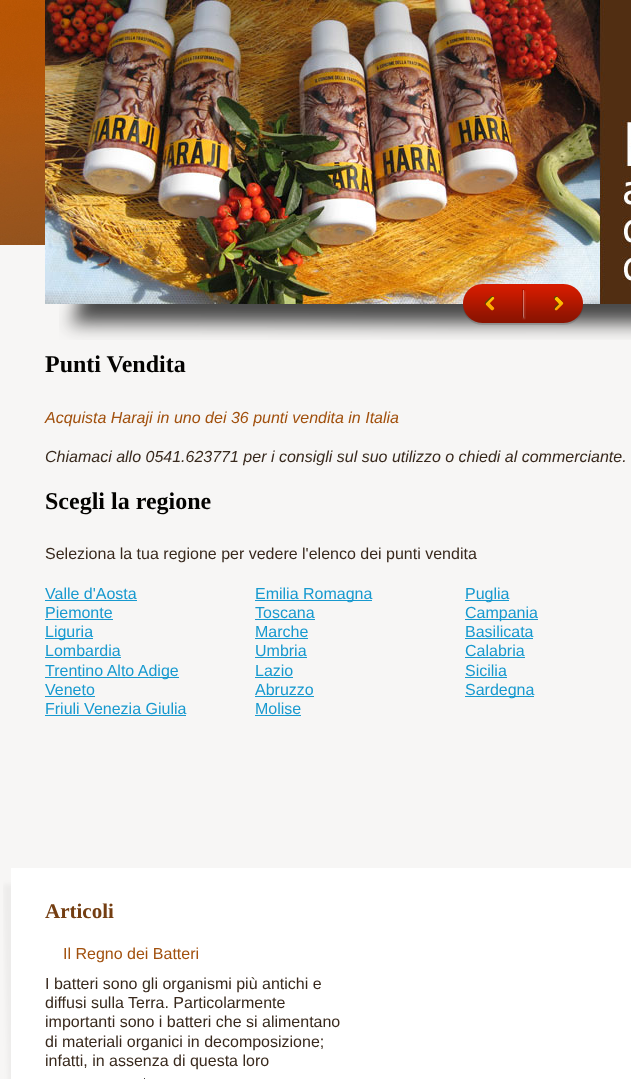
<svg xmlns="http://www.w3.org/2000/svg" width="631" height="1079">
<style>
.a{font:bold 24px Liberation Serif;fill:#040301}
.b{font:italic 16px Liberation Sans;fill:#a1500d}
.c{font:italic 16px Liberation Sans;fill:#38291d}
.d{font:16px Liberation Sans;fill:#38291d}
.e{font:16px Liberation Sans;fill:#1799cf}
.f{font:bold 21px Liberation Serif;fill:#743e12}
.g{font:16px Liberation Sans;fill:#a1500d}
</style>
<rect width="100%" height="100%" fill="#f7f6f5"/>
<image href="1.png" x="0" y="0" width="45" height="245"/>
<image href="2.png" x="59" y="304" width="572" height="36"/>
<image href="3.png" x="45" y="0" width="586" height="304"/>
<image href="4.png" x="463" y="284" width="61" height="41"/>
<image href="5.png" x="524" y="284" width="59" height="41"/>
<path fill="#1799cf" d="M45 600h92v1H45z"/>
<path fill="#1799cf" d="M45 619h68v1H45z"/>
<path fill="#1799cf" d="M45 638h48v1H45z"/>
<path fill="#1799cf" d="M45 657h76v1H45z"/>
<path fill="#1799cf" d="M45 677h134v1H45z"/>
<path fill="#1799cf" d="M45 696h50v1H45z"/>
<path fill="#1799cf" d="M45 715h141v1H45z"/>
<path fill="#1799cf" d="M255 600h117v1H255z"/>
<path fill="#1799cf" d="M255 619h60v1H255z"/>
<path fill="#1799cf" d="M255 638h53v1H255z"/>
<path fill="#1799cf" d="M255 657h52v1H255z"/>
<path fill="#1799cf" d="M255 677h38v1H255z"/>
<path fill="#1799cf" d="M255 696h59v1H255z"/>
<path fill="#1799cf" d="M255 715h46v1H255z"/>
<path fill="#1799cf" d="M465 600h44v1H465z"/>
<path fill="#1799cf" d="M465 619h73v1H465z"/>
<path fill="#1799cf" d="M465 638h68v1H465z"/>
<path fill="#1799cf" d="M465 657h60v1H465z"/>
<path fill="#1799cf" d="M465 677h42v1H465z"/>
<path fill="#1799cf" d="M465 696h69v1H465z"/>
<image href="6.png" x="3" y="868" width="628" height="211"/>
<path fill="#3d3d3d" d="M144 1078h1v1H144z"/>
<text class="a" x="45" y="372">Punti Vendita</text>
<text class="b" x="45" y="423">Acquista Haraji in uno dei 36 punti vendita in Italia</text>
<text class="c" x="45" y="462">Chiamaci allo 0541.623771 per i consigli sul suo utilizzo o chiedi al commerciante.</text>
<text class="a" x="45" y="509">Scegli la regione</text>
<text class="d" x="45" y="559">Seleziona la tua regione per vedere l'elenco dei punti vendita</text>
<text class="e" x="45" y="599">Valle d'Aosta</text>
<text class="e" x="45" y="618">Piemonte</text>
<text class="e" x="45" y="637">Liguria</text>
<text class="e" x="45" y="656">Lombardia</text>
<text class="e" x="45" y="676">Trentino Alto Adige</text>
<text class="e" x="45" y="695">Veneto</text>
<text class="e" x="45" y="714">Friuli Venezia Giulia</text>
<text class="e" x="255" y="599">Emilia Romagna</text>
<text class="e" x="255" y="618">Toscana</text>
<text class="e" x="255" y="637">Marche</text>
<text class="e" x="255" y="656">Umbria</text>
<text class="e" x="255" y="676">Lazio</text>
<text class="e" x="255" y="695">Abruzzo</text>
<text class="e" x="255" y="714">Molise</text>
<text class="e" x="465" y="599">Puglia</text>
<text class="e" x="465" y="618">Campania</text>
<text class="e" x="465" y="637">Basilicata</text>
<text class="e" x="465" y="656">Calabria</text>
<text class="e" x="465" y="676">Sicilia</text>
<text class="e" x="465" y="695">Sardegna</text>
<text class="f" x="45" y="918">Articoli</text>
<text class="g" x="63" y="959">Il Regno dei Batteri</text>
<text class="d" x="45" y="989">I batteri sono gli organismi più antichi e</text>
<text class="d" x="45" y="1008">diffusi sulla Terra. Particolarmente</text>
<text class="d" x="45" y="1027">importanti sono i batteri che si alimentano</text>
<text class="d" x="45" y="1047">di materiali organici in decomposizione;</text>
<text class="d" x="45" y="1066">infatti, in assenza di questa loro</text>
</svg>
